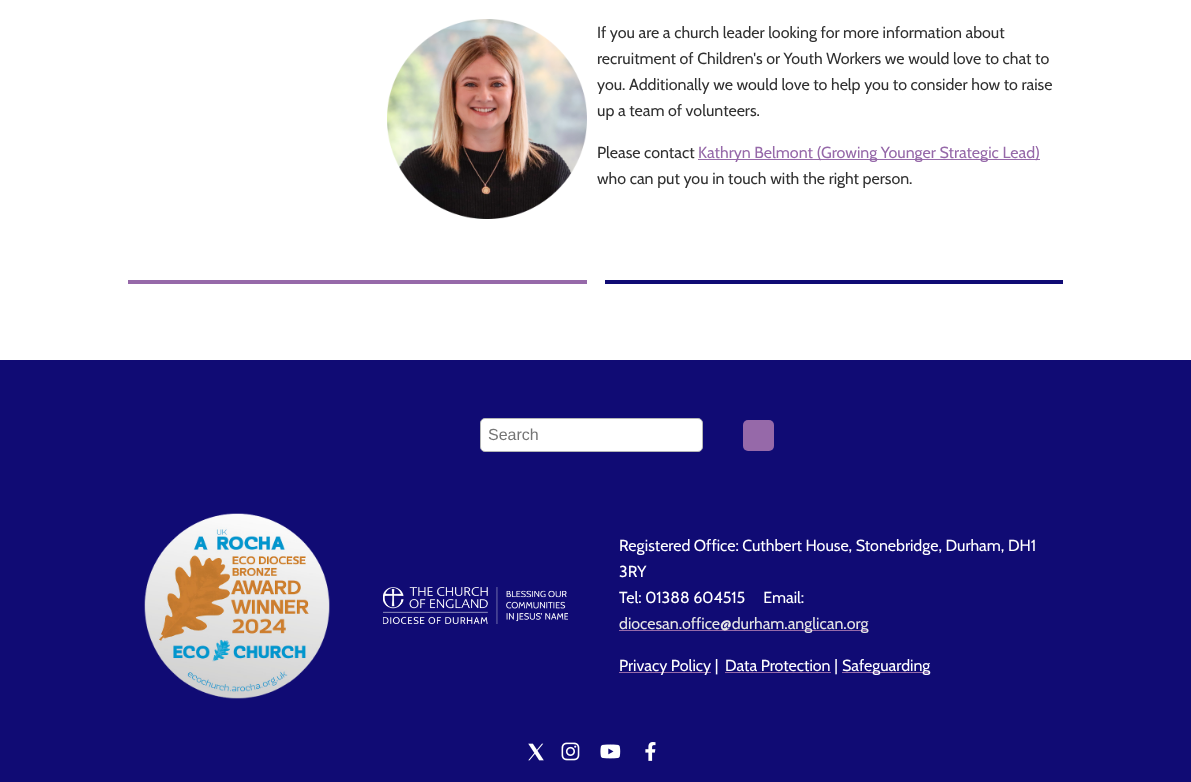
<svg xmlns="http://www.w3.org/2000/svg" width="1191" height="782">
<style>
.a{font:16px Cabin;fill:#313131}
.b{font:16px Cabin;fill:#9669a9}
.c{font:16px Liberation Sans;fill:#757575}
.d{font:16px Cabin;fill:#fff}
.e{font:16px Cabin;fill:#e6e6e6}
</style>
<rect width="100%" height="100%" fill="#fff"/>
<image href="1.png" x="387" y="19" width="200" height="200"/>
<path fill="#9669a9" d="M698 159h342v1H698z"/>
<path fill="#9669a9" d="M128 280h459v4H128z"/>
<path fill="#100b74" d="M605 280h458v4H605z"/>
<path fill="#100b74" d="M0 360h1191v422H0z"/>
<rect fill="#fff" stroke="#b3b5b6" x="480.5" y="418.5" width="222" height="33" rx="4.5"/>
<rect fill="#9669a9" x="743" y="420" width="31" height="31" rx="5"/>
<image href="2.png" x="144" y="513" width="186" height="186"/>
<image href="3.png" x="383" y="587" width="185" height="37"/>
<path fill="#9669a9" d="M619 630h249v1H619z"/>
<path fill="#9669a9" d="M619 672h92v1H619z"/>
<path fill="#9669a9" d="M725 672h106v1H725z"/>
<path fill="#9669a9" d="M842 672h88v1H842z"/>
<image href="4.png" x="528" y="743" width="16" height="18"/>
<image href="5.png" x="561" y="742" width="19" height="19"/>
<image href="6.png" x="600" y="744" width="21" height="15"/>
<image href="7.png" x="645" y="742" width="11" height="19"/>
<text class="a" x="597" y="38">If you are a church leader looking for more information about</text>
<text class="a" x="597" y="64">recruitment of Children's or Youth Workers we would love to chat to</text>
<text class="a" x="597" y="90">you. Additionally we would love to help you to consider how to raise</text>
<text class="a" x="597" y="116">up a team of volunteers.</text>
<text class="a" x="597" y="158">Please contact</text>
<text class="b" x="698" y="158">Kathryn Belmont (Growing Younger Strategic Lead)</text>
<text class="a" x="597" y="184">who can put you in touch with the right person.</text>
<text class="c" x="488" y="440">Search</text>
<text class="d" x="619" y="551">Registered Office: Cuthbert House, Stonebridge, Durham, DH1</text>
<text class="d" x="619" y="577">3RY</text>
<text class="d" xml:space="preserve" x="619" y="603">Tel: 01388 604515     Email:</text>
<text class="e" x="619" y="629">diocesan.office@durham.anglican.org</text>
<text class="d" x="619" y="671">Privacy Policy |</text>
<text class="d" x="725" y="671">Data Protection |</text>
<text class="d" x="842" y="671">Safeguarding</text>
</svg>
